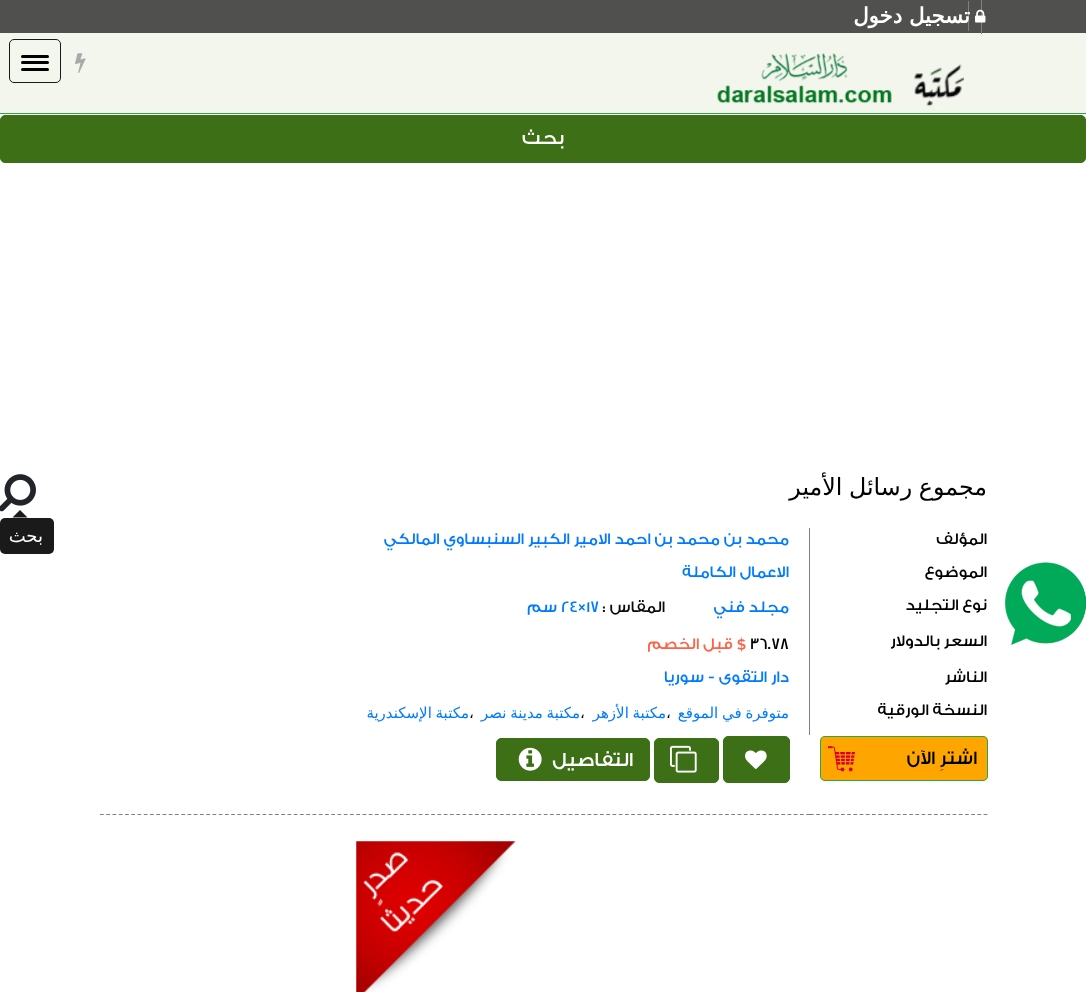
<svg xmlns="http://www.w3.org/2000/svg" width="1086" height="992">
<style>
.a{font:bold 21.25px DejaVu Sans;direction:rtl;fill:#fff}
.b{font:500 20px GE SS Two;direction:rtl;fill:#fff}
.c{font:23.75px DejaVu Sans;direction:rtl;fill:#000}
.d{font:500 16.25px GE SS Two;direction:rtl;fill:#000}
.e{font:500 16.25px GE SS Two;direction:rtl;fill:#007bff}
.f{font:500 16.25px GE SS Two;direction:rtl;fill:#0c0c0c}
.g{font:500 16.25px GE SS Two;fill:#007bff}
.h{font:500 16.25px GE SS Two;fill:#000}
.i{font:500 16.25px GE SS Two;direction:rtl;fill:#ff6347}
.j{font:15px DejaVu Sans;direction:rtl;fill:#007bff}
.k{font:15px DejaVu Sans;fill:#000}
.l{font:500 19px GE SS Two;direction:rtl;fill:#000}
.m{font:18px DejaVu Sans;direction:rtl;fill:#fff}
</style>
<rect width="100%" height="100%" fill="#fff"/>
<path fill="#50504f" d="M0 0h1086v33H0z"/>
<path fill="#808080" d="M968 1h1v30H968z"/>
<path fill="#f3f6ed" d="M0 33h1086v80H0z"/>
<path fill="#808080" d="M981 0h1v34H981z"/>
<image href="1.png" x="975" y="9" width="11" height="14"/>
<image href="2.png" x="75" y="53" width="11" height="20"/>
<rect fill="none" stroke="#181918" x="9.5" y="39.5" width="51" height="43" rx="4.5"/>
<rect fill="#000" x="21" y="55" width="28" height="3" rx="1.5"/>
<rect fill="#000" x="21" y="61" width="28" height="3" rx="1.5"/>
<rect fill="#000" x="21" y="68" width="28" height="3" rx="1.5"/>
<path fill="#28a745" d="M0 113h1086v1H0z"/>
<image href="3.png" x="913" y="64" width="51" height="45"/>
<image href="4.png" x="717" y="53" width="175" height="51"/>
<rect fill="#3d7016" stroke="#3d7016" x="0.5" y="115.5" width="1085" height="47" rx="4.5"/>
<path fill="#808080" d="M809 528h1v207H809z"/>
<rect fill="#ffa500" x="820" y="736" width="168" height="45" rx="5"/>
<image href="5.png" x="828" y="746" width="27" height="26"/>
<rect fill="none" stroke="#28a745" x="820.5" y="736.5" width="167" height="44" rx="4.5"/>
<rect fill="#3d7016" stroke="#3d7016" x="723.5" y="736.5" width="66" height="46" rx="4.5"/>
<image href="6.png" x="745" y="750" width="22" height="19"/>
<rect fill="#3d7016" stroke="#3d7016" x="654.5" y="738.5" width="64" height="44" rx="4.5"/>
<image href="7.png" x="670" y="745" width="27" height="28"/>
<rect fill="#3d7016" stroke="#3d7016" x="496.5" y="738.5" width="153" height="42" rx="4.5"/>
<image href="8.png" x="518" y="747" width="24" height="24"/>
<path fill="none" stroke="#808080" stroke-width="1.2" stroke-dasharray="3.75 2.45" d="M810 814.5h177.5"/>
<path fill="none" stroke="#808080" stroke-width="1.2" stroke-dasharray="3.75 2.5" d="M100 814.5h710"/>
<image href="9.png" x="356" y="841" width="160" height="151"/>
<image href="10.png" x="0" y="474" width="36" height="38"/>
<path fill="#1a1a1a" d="M27.5 517.5h-15l7.5-7.5z"/>
<rect fill="#1a1a1a" y="518" width="54" height="36" rx="5"/>
<image href="11.png" x="1005" y="562" width="81" height="84"/>
<text class="a" x="970" y="23">تسجيل دخول</text>
<text class="b" x="564" y="144">بحث</text>
<text class="c" x="987" y="495" word-spacing="-1">مجموع رسائل الأمير</text>
<text class="d" x="987" y="544">المؤلف</text>
<text class="e" x="789" y="544">محمد بن محمد بن احمد الامير الكبير السنبساوي المالكي</text>
<text class="d" x="987" y="577">الموضوع</text>
<text class="e" x="789" y="577">الاعمال الكاملة</text>
<text class="d" x="987" y="610">نوع التجليد</text>
<text class="e" x="789" y="612">مجلد فني</text>
<text class="f" x="665" y="612">المقاس :</text>
<text class="g" x="561" y="612">24×17</text>
<text class="e" x="557" y="612">سم</text>
<text class="d" x="987" y="646">السعر بالدولار</text>
<text class="h" x="750" y="649">36.78</text>
<text class="i" x="746" y="649">$ قبل الخصم</text>
<text class="d" x="987" y="682">الناشر</text>
<text class="e" x="789" y="682">دار التقوى - سوريا</text>
<text class="d" x="987" y="715">النسخة الورقية</text>
<text class="j" x="789" y="718" word-spacing="-1">متوفرة في الموقع</text>
<text class="k" x="666" y="718">،</text>
<text class="j" x="666" y="718" word-spacing="-1">مكتبة الأزهر</text>
<text class="k" x="580" y="718">،</text>
<text class="j" x="580" y="718" word-spacing="-1">مكتبة مدينة نصر</text>
<text class="k" x="469" y="718">،</text>
<text class="j" x="469" y="718" word-spacing="-1">مكتبة الإسكندرية</text>
<text class="l" x="977" y="764">اشترِ الآن</text>
<text class="b" x="633" y="766">التفاصيل</text>
<text class="m" x="43" y="542">بحث</text>
</svg>
